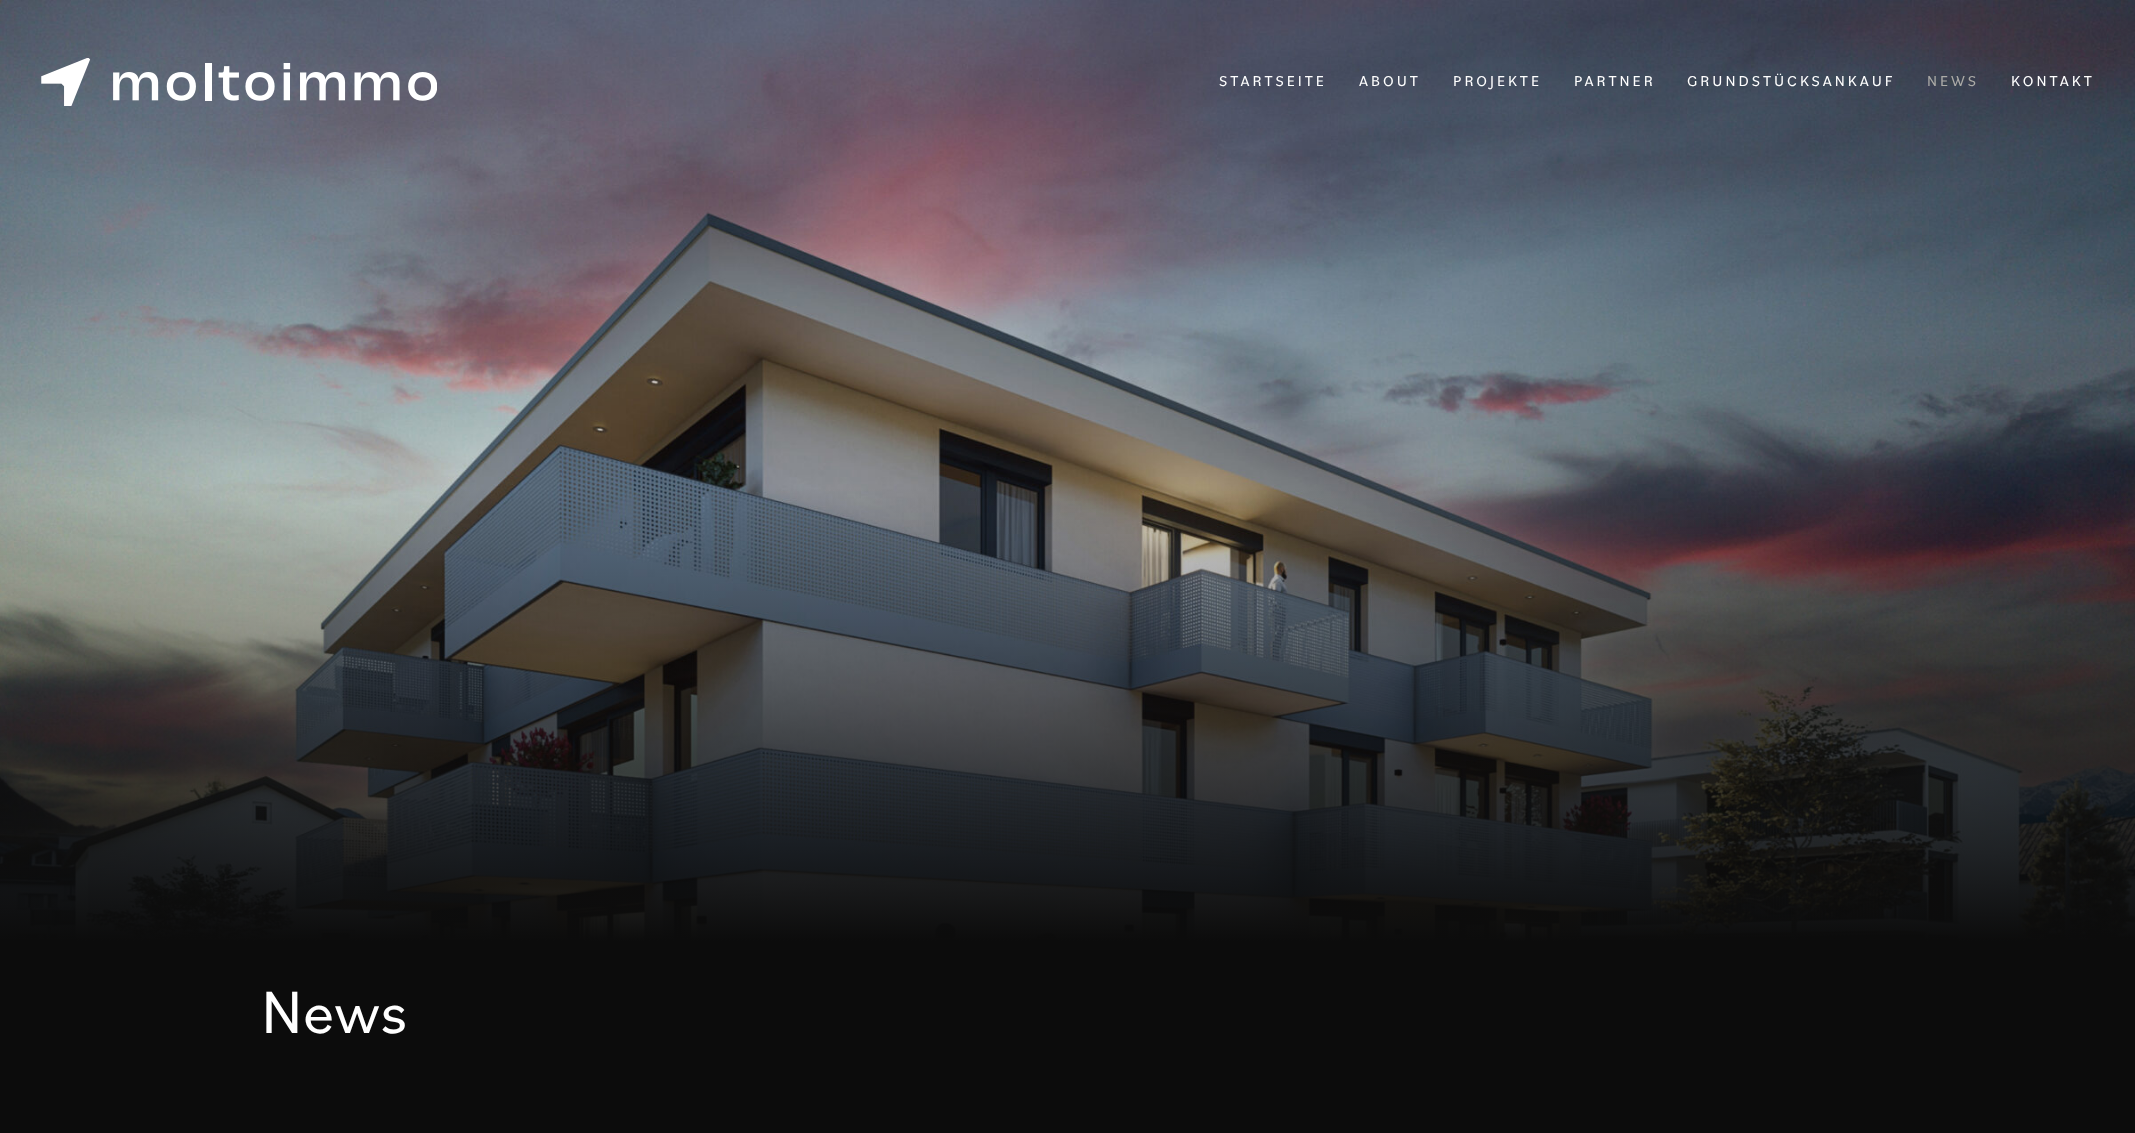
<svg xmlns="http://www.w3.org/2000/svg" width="2135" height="1133">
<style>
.a{font:15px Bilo;letter-spacing:3px;fill:#fff}
.b{font:15px Bilo;letter-spacing:3px;fill:#acaba7}
.c{font:62.5px Bilo;fill:#fff}
</style>
<rect width="100%" height="100%" fill="#fff"/>
<image href="2.png" x="0" y="0" width="2135" height="1133"/>
<image href="1.png" x="41" y="58" width="396" height="48"/>
<text class="a" x="1219" y="86">STARTSEITE</text>
<text class="a" x="1359" y="86">ABOUT</text>
<text class="a" x="1453" y="86">PROJEKTE</text>
<text class="a" x="1574" y="86">PARTNER</text>
<text class="a" x="1687" y="86">GRUNDSTÜCKSANKAUF</text>
<text class="b" x="1927" y="86">NEWS</text>
<text class="a" x="2011" y="86">KONTAKT</text>
<text class="c" x="261" y="1033">News</text>
</svg>
